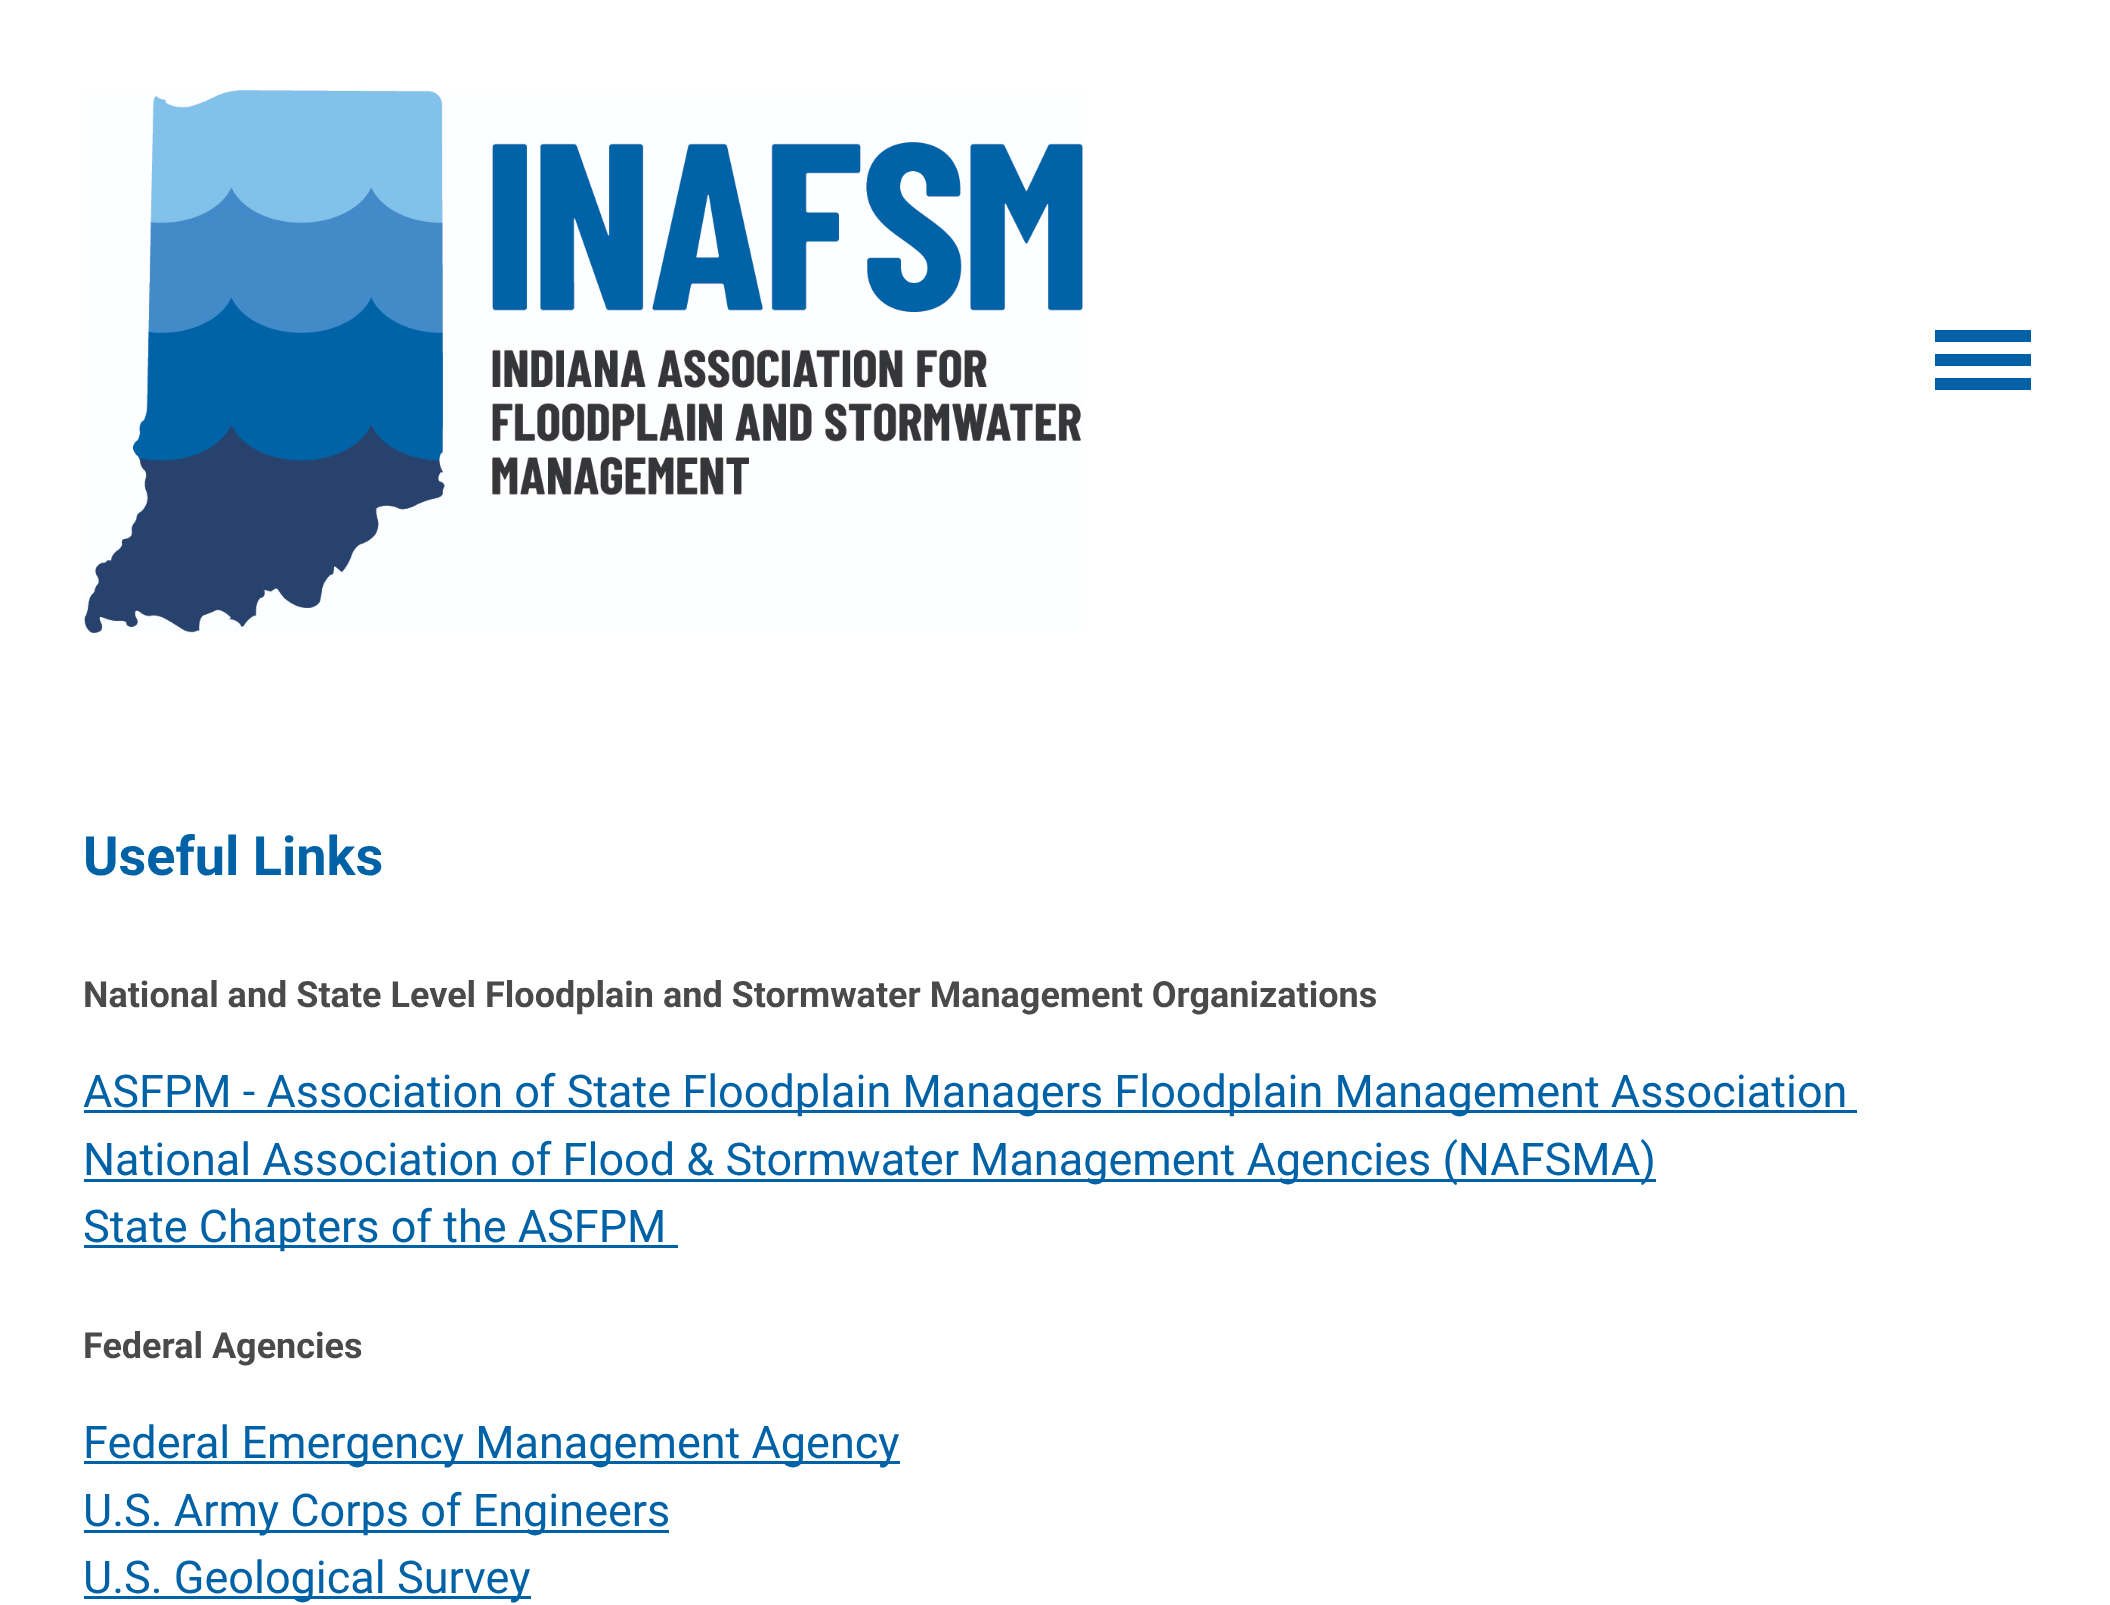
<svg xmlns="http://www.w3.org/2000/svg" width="2110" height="1605">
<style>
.a{font:bold 54px Roboto;fill:#0062a6}
.b{font:bold 36px Roboto;fill:#4a4a4a}
.c{font:45px Roboto;fill:#0062a6}
</style>
<rect width="100%" height="100%" fill="#fff"/>
<image href="1.png" x="84" y="90" width="999" height="543"/>
<path fill="#0062a6" d="M1935 330h96v12h-96zm0 24h96v12h-96zm0 24h96v12h-96z"/>
<path fill="#0062a6" d="M84 1110h1773v3H84z"/>
<path fill="#0062a6" d="M84 1179h1572v3H84z"/>
<path fill="#0062a6" d="M84 1245h594v3H84z"/>
<path fill="#0062a6" d="M84 1461h816v3H84z"/>
<path fill="#0062a6" d="M84 1530h585v3H84z"/>
<path fill="#0062a6" d="M84 1596h447v3H84z"/>
<text class="a" x="83" y="875">Useful Links</text>
<text class="b" x="83" y="1007">National and State Level Floodplain and Stormwater Management Organizations</text>
<text class="c" x="83" y="1107">ASFPM - Association of State Floodplain Managers Floodplain Management Association</text>
<text class="c" x="83" y="1175">National Association of Flood &amp; Stormwater Management Agencies (NAFSMA)</text>
<text class="c" x="83" y="1242">State Chapters of the ASFPM</text>
<text class="b" x="83" y="1358">Federal Agencies</text>
<text class="c" x="83" y="1458">Federal Emergency Management Agency</text>
<text class="c" x="83" y="1526">U.S. Army Corps of Engineers</text>
<text class="c" x="83" y="1593">U.S. Geological Survey</text>
</svg>
